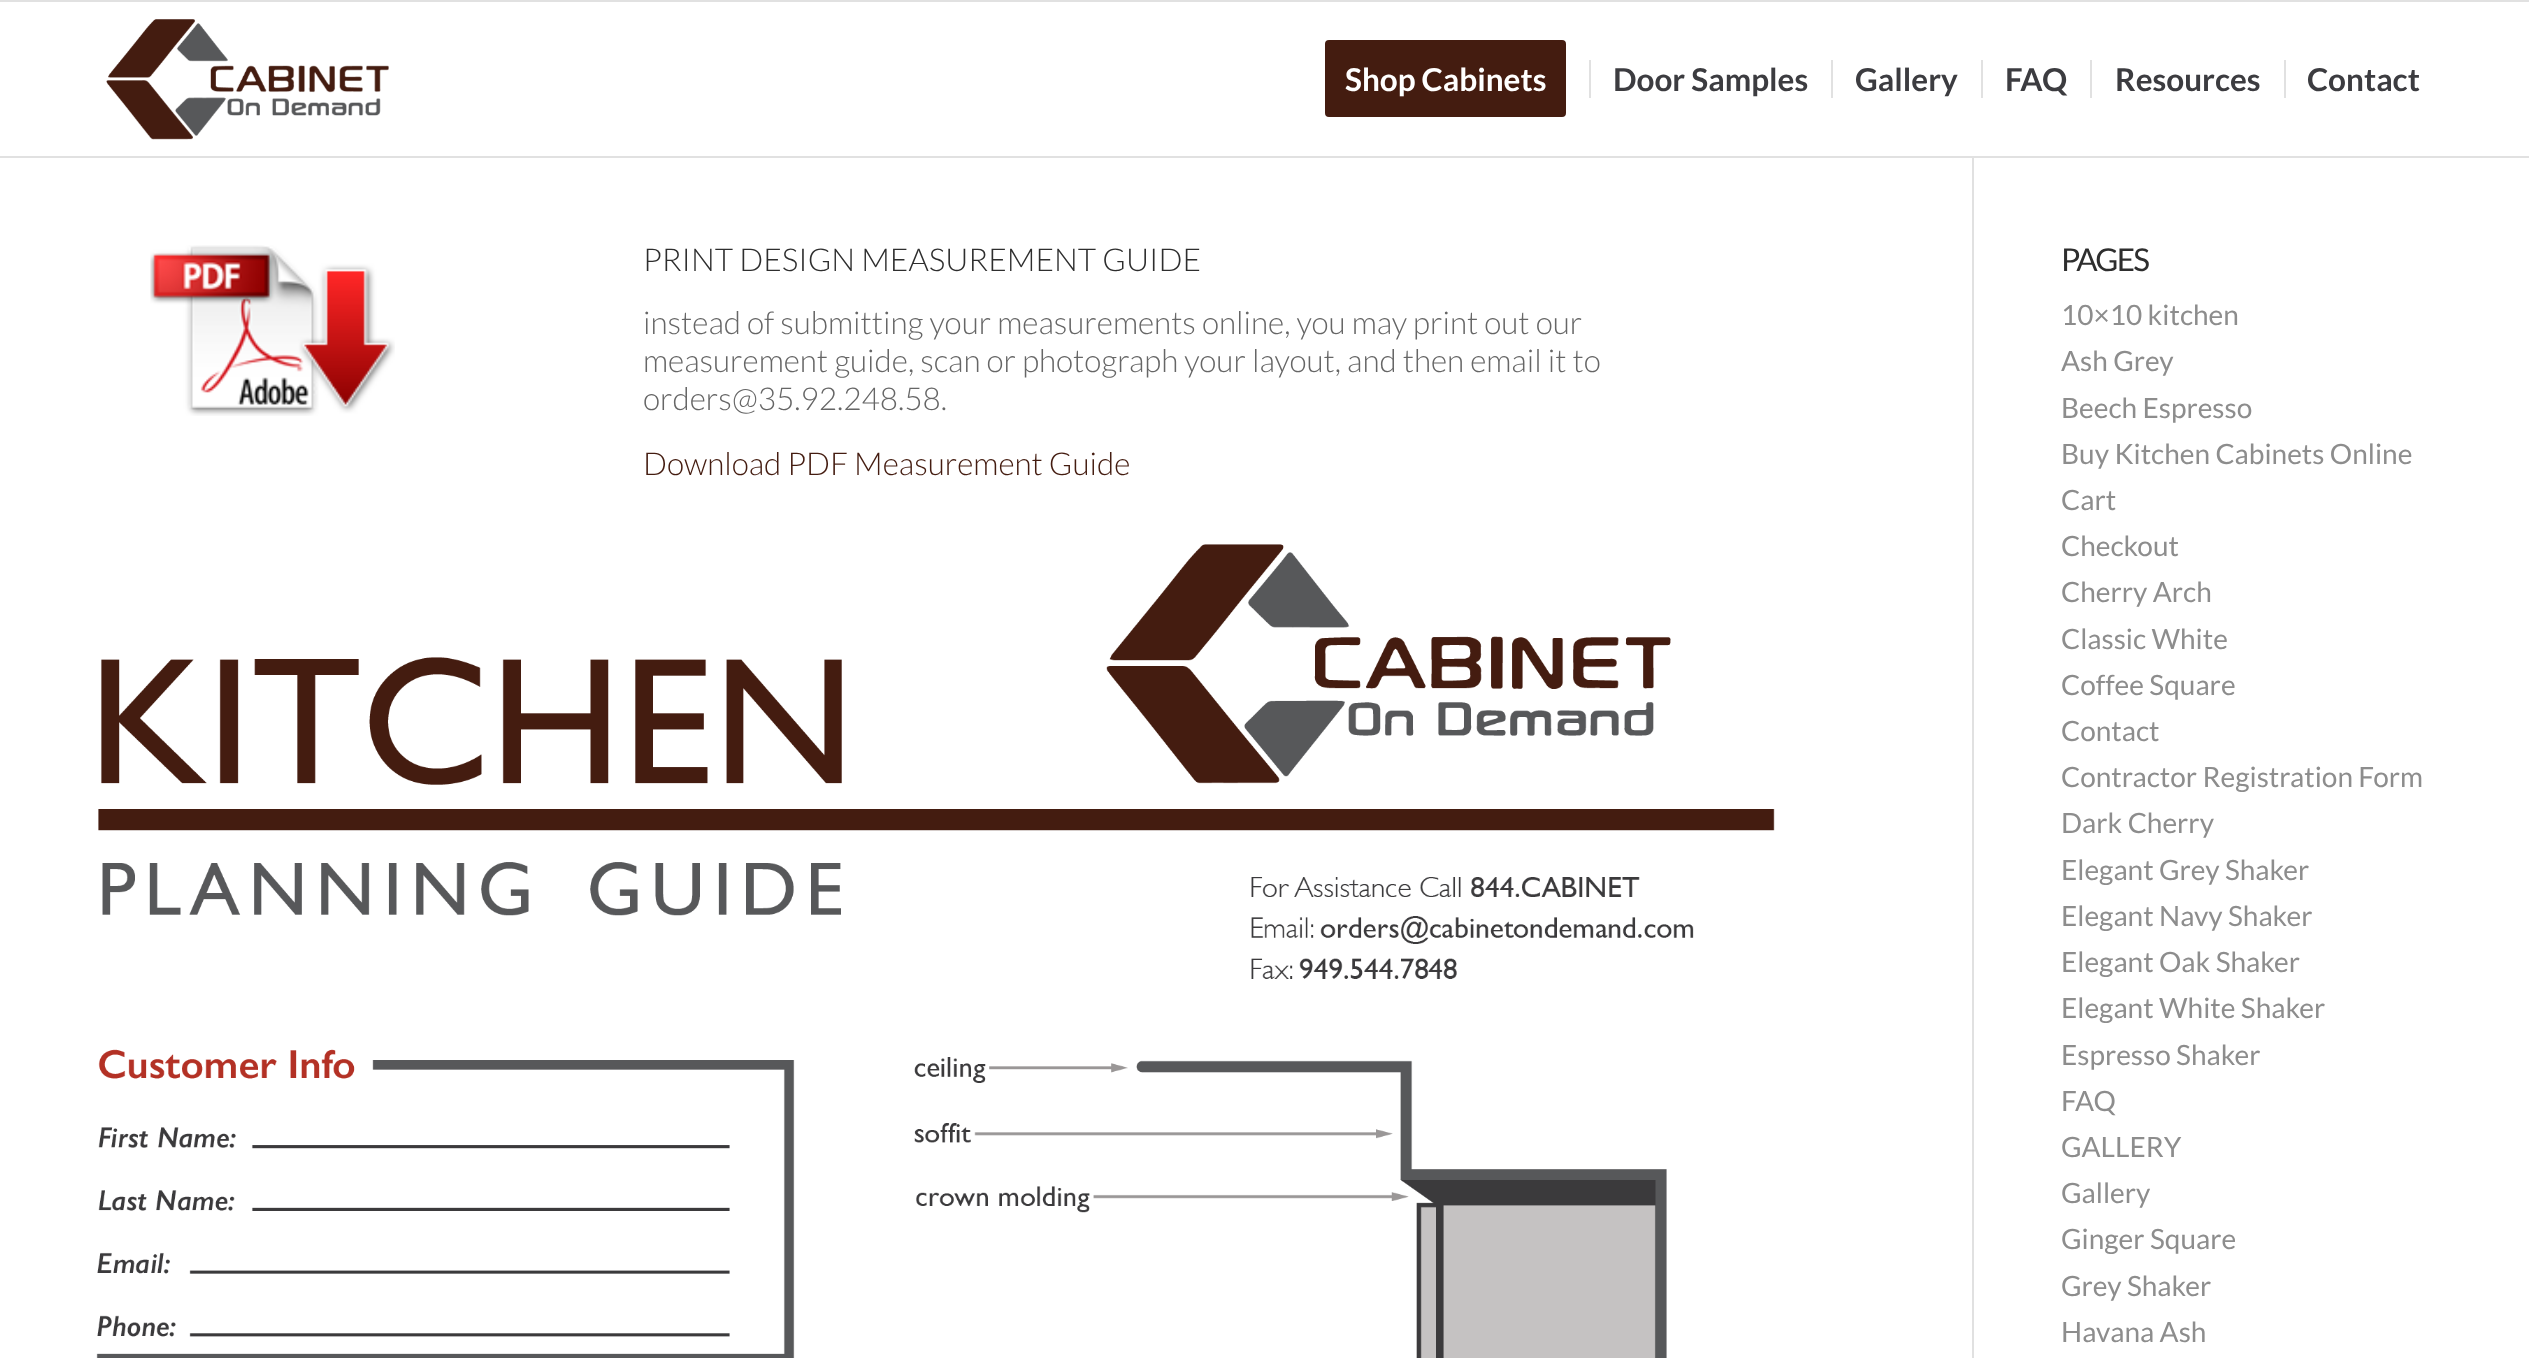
<svg xmlns="http://www.w3.org/2000/svg" width="2529" height="1358">
<style>
.a{font:bold 31.5px Lato;fill:#fff}
.b{font:bold 31.5px Lato;fill:#3c3c40}
.c{font:300 31.5px Lato;fill:#2e2e2e}
.d{font:300 31.5px Lato;fill:#666}
.e{font:300 31.5px Lato;fill:#441c10}
.f{font:31.5px Lato;letter-spacing:-1.75px;fill:#2e2e2e}
.g{font:28px Lato;fill:#8d8d8d}
</style>
<rect width="100%" height="100%" fill="#fff"/>
<path fill="#e1e1e1" d="M0 0h2529v2H0z"/>
<path fill="#e1e1e1" d="M1972 156h2v1202H1972z"/>
<path fill="#e1e1e1" d="M0 156h2529v2H0z"/>
<image href="1.png" x="106" y="19" width="283" height="121"/>
<rect fill="#441c10" stroke="#441c10" stroke-width="4" x="1327" y="42" width="237" height="73" rx="2"/>
<path fill="#e1e1e1" d="M1589 60h2v38H1589z"/>
<path fill="#e1e1e1" d="M1831 60h2v38H1831z"/>
<path fill="#e1e1e1" d="M1981 60h2v38H1981z"/>
<path fill="#e1e1e1" d="M2090 60h2v38H2090z"/>
<path fill="#e1e1e1" d="M2284 60h2v38H2284z"/>
<image href="2.png" x="150" y="245" width="245" height="171"/>
<image href="3.png" x="96" y="544" width="1679" height="814"/>
<text class="a" x="1345" y="91">Shop Cabinets</text>
<text class="b" x="1613" y="91">Door Samples</text>
<text class="b" x="1855" y="91">Gallery</text>
<text class="b" x="2005" y="91">FAQ</text>
<text class="b" x="2115" y="91">Resources</text>
<text class="b" x="2307" y="91">Contact</text>
<text class="c" x="643" y="271">PRINT DESIGN MEASUREMENT GUIDE</text>
<text class="d" x="643" y="334">instead of submitting your measurements online, you may print out our</text>
<text class="d" x="643" y="372">measurement guide, scan or photograph your layout, and then email it to</text>
<text class="d" x="643" y="410">orders@35.92.248.58.</text>
<text class="e" x="643" y="475">Download PDF Measurement Guide</text>
<text class="f" x="2061" y="271">PAGES</text>
<text class="g" x="2061" y="325">10×10 kitchen</text>
<text class="g" x="2061" y="371">Ash Grey</text>
<text class="g" x="2061" y="418">Beech Espresso</text>
<text class="g" x="2061" y="464">Buy Kitchen Cabinets Online</text>
<text class="g" x="2061" y="510">Cart</text>
<text class="g" x="2061" y="556">Checkout</text>
<text class="g" x="2061" y="602">Cherry Arch</text>
<text class="g" x="2061" y="649">Classic White</text>
<text class="g" x="2061" y="695">Coffee Square</text>
<text class="g" x="2061" y="741">Contact</text>
<text class="g" x="2061" y="787">Contractor Registration Form</text>
<text class="g" x="2061" y="833">Dark Cherry</text>
<text class="g" x="2061" y="880">Elegant Grey Shaker</text>
<text class="g" x="2061" y="926">Elegant Navy Shaker</text>
<text class="g" x="2061" y="972">Elegant Oak Shaker</text>
<text class="g" x="2061" y="1018">Elegant White Shaker</text>
<text class="g" x="2061" y="1065">Espresso Shaker</text>
<text class="g" x="2061" y="1111">FAQ</text>
<text class="g" x="2061" y="1157">GALLERY</text>
<text class="g" x="2061" y="1203">Gallery</text>
<text class="g" x="2061" y="1249">Ginger Square</text>
<text class="g" x="2061" y="1296">Grey Shaker</text>
<text class="g" x="2061" y="1342">Havana Ash</text>
</svg>
